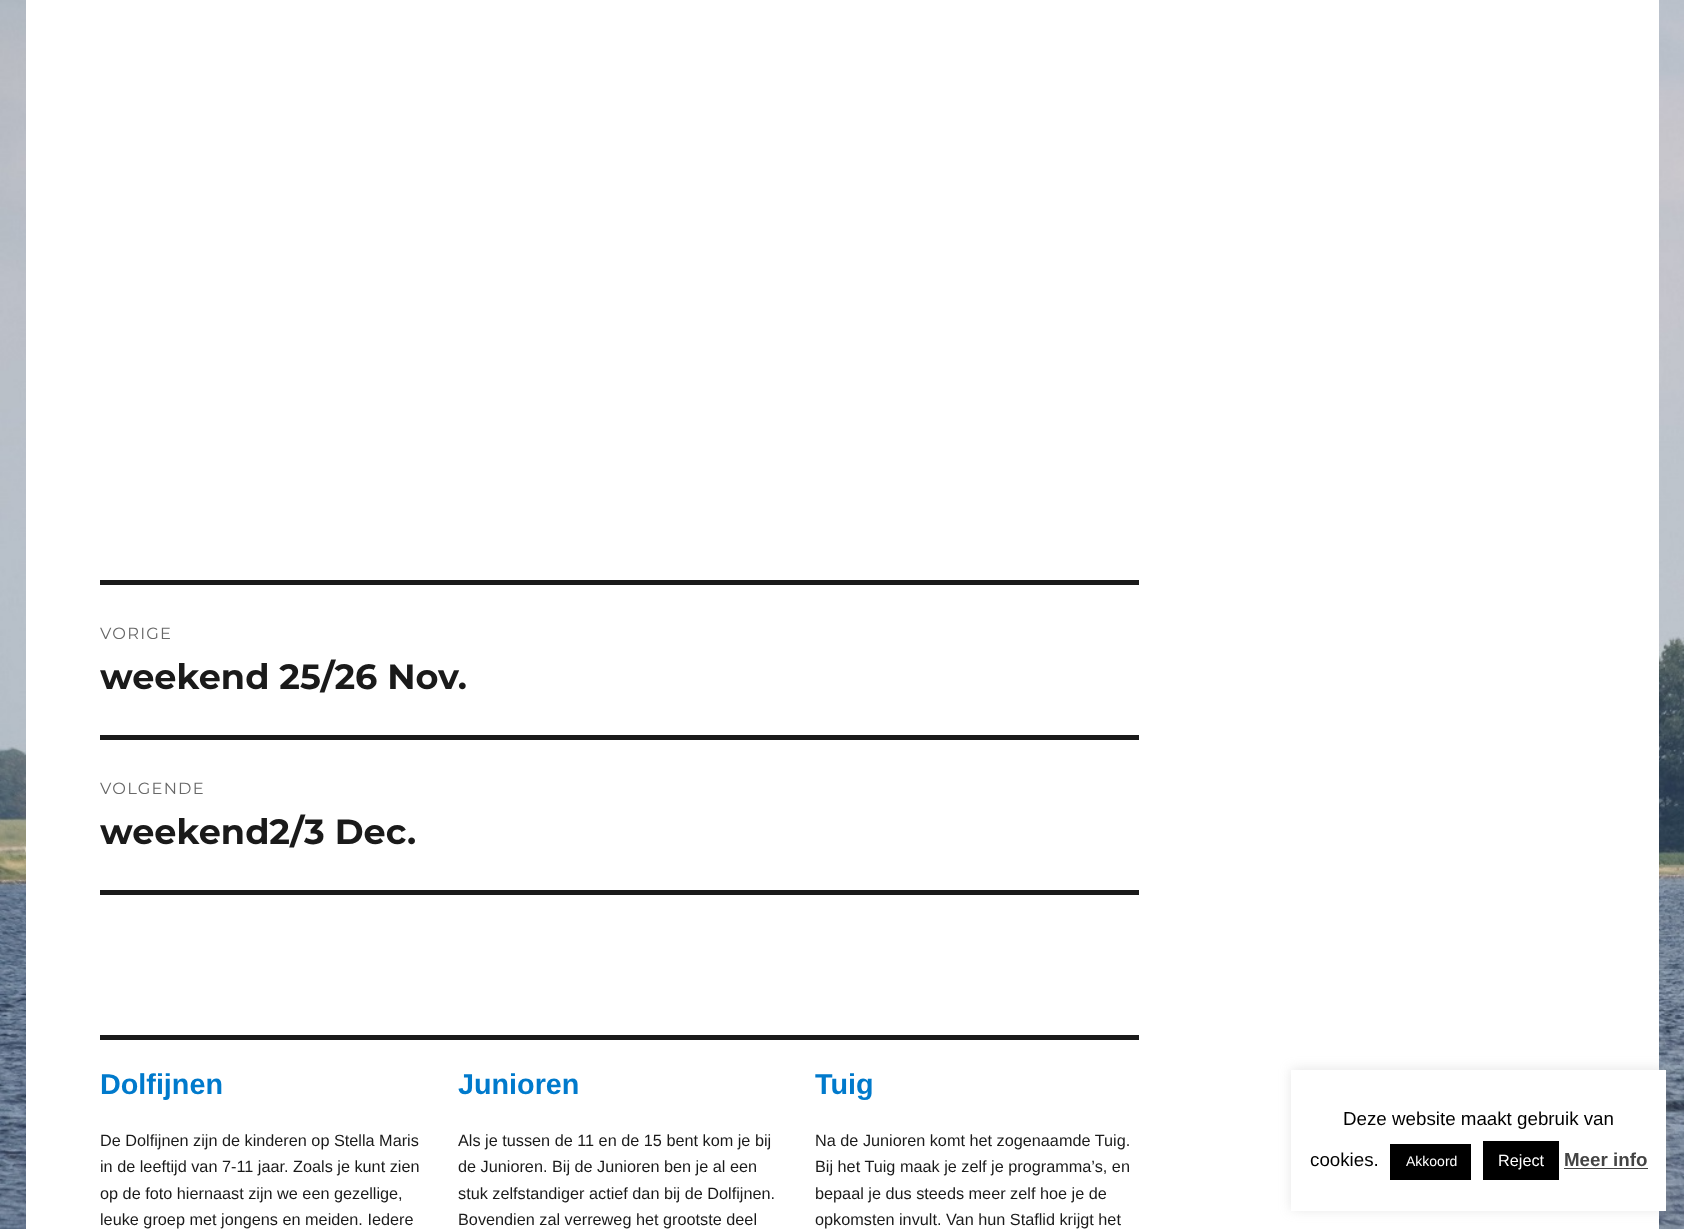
<svg xmlns="http://www.w3.org/2000/svg" width="1684" height="1229">
<style>
.a{font:100 16.25px Montserrat;letter-spacing:1.25px;fill:#686868}
.b{font:100 35px 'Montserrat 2';fill:#1a1a1a}
.c{font:bold 28.75px Liberation Sans;fill:#007acc}
.d{font:16.25px Liberation Sans;fill:#1a1a1a}
.e{font:18.75px Liberation Sans;fill:#000}
.f{font:14px Liberation Sans;fill:#fff}
.g{font:16.25px Liberation Sans;fill:#fff}
.h{font:bold 18.75px Liberation Sans;fill:#444}
</style>
<rect width="100%" height="100%" fill="#fff"/>
<image href="1.png" x="0" y="0" width="1684" height="1229"/>
<path fill="#fff" d="M26 0h1633v1229H26z"/>
<path fill="#1a1a1a" d="M100 580h1039v5H100z"/>
<path fill="#1a1a1a" d="M100 890h1039v5H100z"/>
<path fill="#1a1a1a" d="M100 735h1039v5H100z"/>
<path fill="#1a1a1a" d="M100 1035h1039v5H100z"/>
<path fill="#acabab4d" filter="blur(6px)" d="M1291 1069h375v141H1291z"/>
<path fill="#fff" d="M1291 1070h375v141H1291z"/>
<path fill="#000" d="M1390 1144h81v36H1390z"/>
<path fill="#000" d="M1483 1141h76v39H1483z"/>
<path fill="#444" d="M1564 1168h84v1H1564z"/>
<text class="a" x="100" y="639">VORIGE</text>
<text class="b" x="100" y="689">weekend 25/26 Nov.</text>
<text class="a" x="100" y="794">VOLGENDE</text>
<text class="b" x="100" y="844">weekend2/3 Dec.</text>
<text class="c" x="100" y="1094">Dolfijnen</text>
<text class="d" x="100" y="1146">De Dolfijnen zijn de kinderen op Stella Maris</text>
<text class="d" x="100" y="1172">in de leeftijd van 7-11 jaar. Zoals je kunt zien</text>
<text class="d" x="100" y="1199">op de foto hiernaast zijn we een gezellige,</text>
<text class="d" x="100" y="1225">leuke groep met jongens en meiden. Iedere</text>
<text class="c" x="458" y="1094">Junioren</text>
<text class="d" x="458" y="1146">Als je tussen de 11 en de 15 bent kom je bij</text>
<text class="d" x="458" y="1172">de Junioren. Bij de Junioren ben je al een</text>
<text class="d" x="458" y="1199">stuk zelfstandiger actief dan bij de Dolfijnen.</text>
<text class="d" x="458" y="1225">Bovendien zal verreweg het grootste deel</text>
<text class="c" x="815" y="1094">Tuig</text>
<text class="d" x="815" y="1146">Na de Junioren komt het zogenaamde Tuig.</text>
<text class="d" x="815" y="1172">Bij het Tuig maak je zelf je programma’s, en</text>
<text class="d" x="815" y="1199">bepaal je dus steeds meer zelf hoe je de</text>
<text class="d" x="815" y="1225">opkomsten invult. Van hun Staflid krijgt het</text>
<text class="e" x="1343" y="1125">Deze website maakt gebruik van</text>
<text class="e" x="1310" y="1166">cookies.</text>
<text class="f" x="1406" y="1166">Akkoord</text>
<text class="g" x="1498" y="1166">Reject</text>
<text class="h" x="1564" y="1166">Meer info</text>
</svg>
